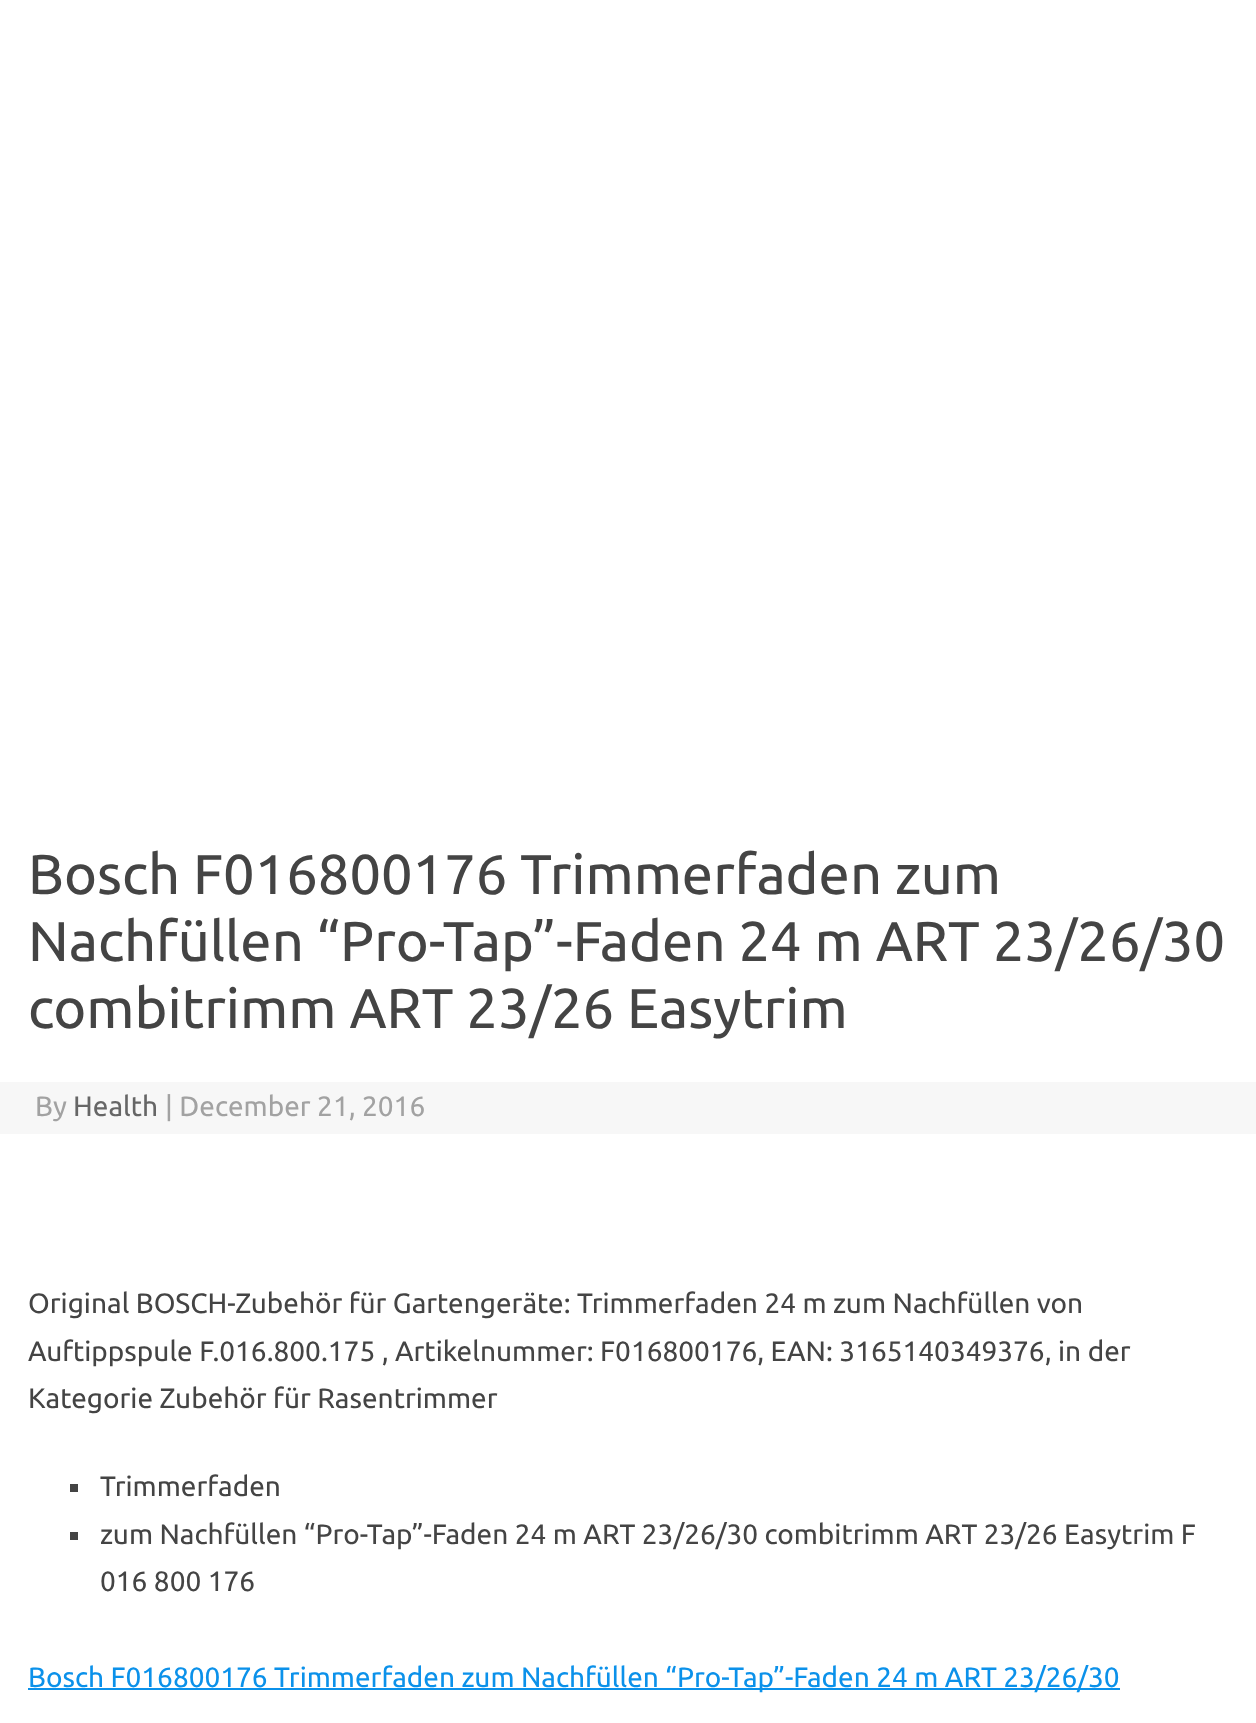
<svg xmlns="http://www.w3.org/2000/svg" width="1256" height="1723">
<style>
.a{font:56px Ubuntu;fill:#444}
.b{font:28px Ubuntu;fill:#a2a2a2}
.c{font:28px Ubuntu;fill:#666}
.d{font:28px Ubuntu;fill:#444}
.e{font:28px Ubuntu;fill:#0b91ea}
</style>
<rect width="100%" height="100%" fill="#fff"/>
<path fill="#f7f7f7" d="M0 1082h1256v52H0z"/>
<path fill="#444" d="M70 1484h8v8H70z"/>
<path fill="#444" d="M70 1532h8v8H70z"/>
<path fill="#0b91ea" d="M28 1688h1092v2H28z"/>
<text class="a" x="28" y="894">Bosch F016800176 Trimmerfaden zum</text>
<text class="a" x="28" y="961">Nachfüllen “Pro-Tap”-Faden 24 m ART 23/26/30</text>
<text class="a" x="28" y="1028">combitrimm ART 23/26 Easytrim</text>
<text class="b" x="35" y="1116">By</text>
<text class="c" x="73" y="1116">Health</text>
<text class="b" x="165" y="1116">| December 21, 2016</text>
<text class="d" x="28" y="1313">Original BOSCH-Zubehör für Gartengeräte: Trimmerfaden 24 m zum Nachfüllen von</text>
<text class="d" x="28" y="1361">Auftippspule F.016.800.175 , Artikelnummer: F016800176, EAN: 3165140349376, in der</text>
<text class="d" x="28" y="1408">Kategorie Zubehör für Rasentrimmer</text>
<text class="d" x="100" y="1496">Trimmerfaden</text>
<text class="d" x="100" y="1544">zum Nachfüllen “Pro-Tap”-Faden 24 m ART 23/26/30 combitrimm ART 23/26 Easytrim F</text>
<text class="d" x="100" y="1591">016 800 176</text>
<text class="e" x="28" y="1687">Bosch F016800176 Trimmerfaden zum Nachfüllen “Pro-Tap”-Faden 24 m ART 23/26/30</text>
</svg>
